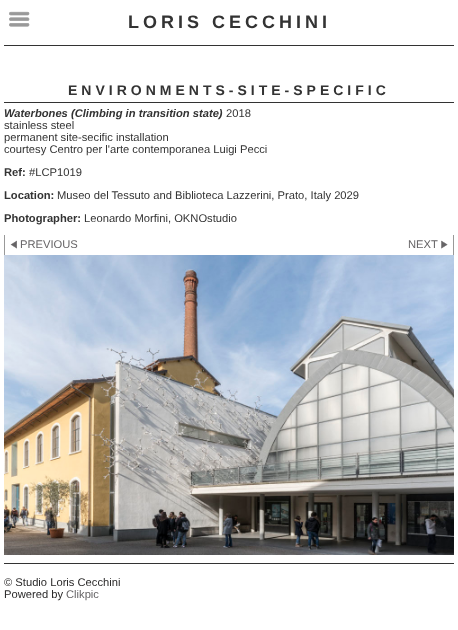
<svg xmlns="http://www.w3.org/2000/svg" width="458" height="630">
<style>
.a{font:bold 18px Liberation Sans;letter-spacing:4px;fill:#333}
.b{font:bold 14px Liberation Sans;letter-spacing:4px;fill:#333}
.c{font:italic bold 11.2px Liberation Sans;fill:#333}
.d{font:11.2px Liberation Sans;fill:#333}
.e{font:bold 11.2px Liberation Sans;fill:#333}
.f{font:11.2px Liberation Sans;fill:#666466}
.g{font:11.2px Liberation Sans;fill:#2b2a2a}
</style>
<rect width="100%" height="100%" fill="#fff"/>
<path fill="#333" d="M4 45h450v1H4z"/>
<image href="1.png" x="9" y="11" width="21" height="16"/>
<path fill="#333" d="M4 102h450v1H4z"/>
<path fill="#999" d="M4 235h1v20H4z"/>
<image href="2.png" x="10" y="240" width="7" height="9"/>
<path fill="#999" d="M453 235h1v20H453z"/>
<image href="3.png" x="441" y="240" width="7" height="9"/>
<image href="4.png" x="4" y="255" width="450" height="300"/>
<path fill="#333" d="M4 563h450v1H4z"/>
<text class="a" x="128" y="28">LORIS CECCHINI</text>
<text class="b" x="68" y="95">ENVIRONMENTS-SITE-SPECIFIC</text>
<text class="c" x="4" y="117">Waterbones (Climbing in transition state)</text>
<text class="d" x="226" y="117">2018</text>
<text class="d" x="4" y="129">stainless steel</text>
<text class="d" x="4" y="141">permanent site-secific installation</text>
<text class="d" x="4" y="153">courtesy Centro per l'arte contemporanea Luigi Pecci</text>
<text class="e" x="4" y="176">Ref:</text>
<text class="d" x="29" y="176">#LCP1019</text>
<text class="e" x="4" y="199">Location:</text>
<text class="d" x="57" y="199">Museo del Tessuto and Biblioteca Lazzerini, Prato, Italy 2029</text>
<text class="e" x="4" y="222">Photographer:</text>
<text class="d" x="84" y="222">Leonardo Morfini, OKNOstudio</text>
<text class="f" x="20" y="248">PREVIOUS</text>
<text class="f" x="408" y="248">NEXT</text>
<text class="g" x="4" y="586">© Studio Loris Cecchini</text>
<text class="g" x="4" y="598">Powered by</text>
<text class="f" x="66" y="598">Clikpic</text>
</svg>
